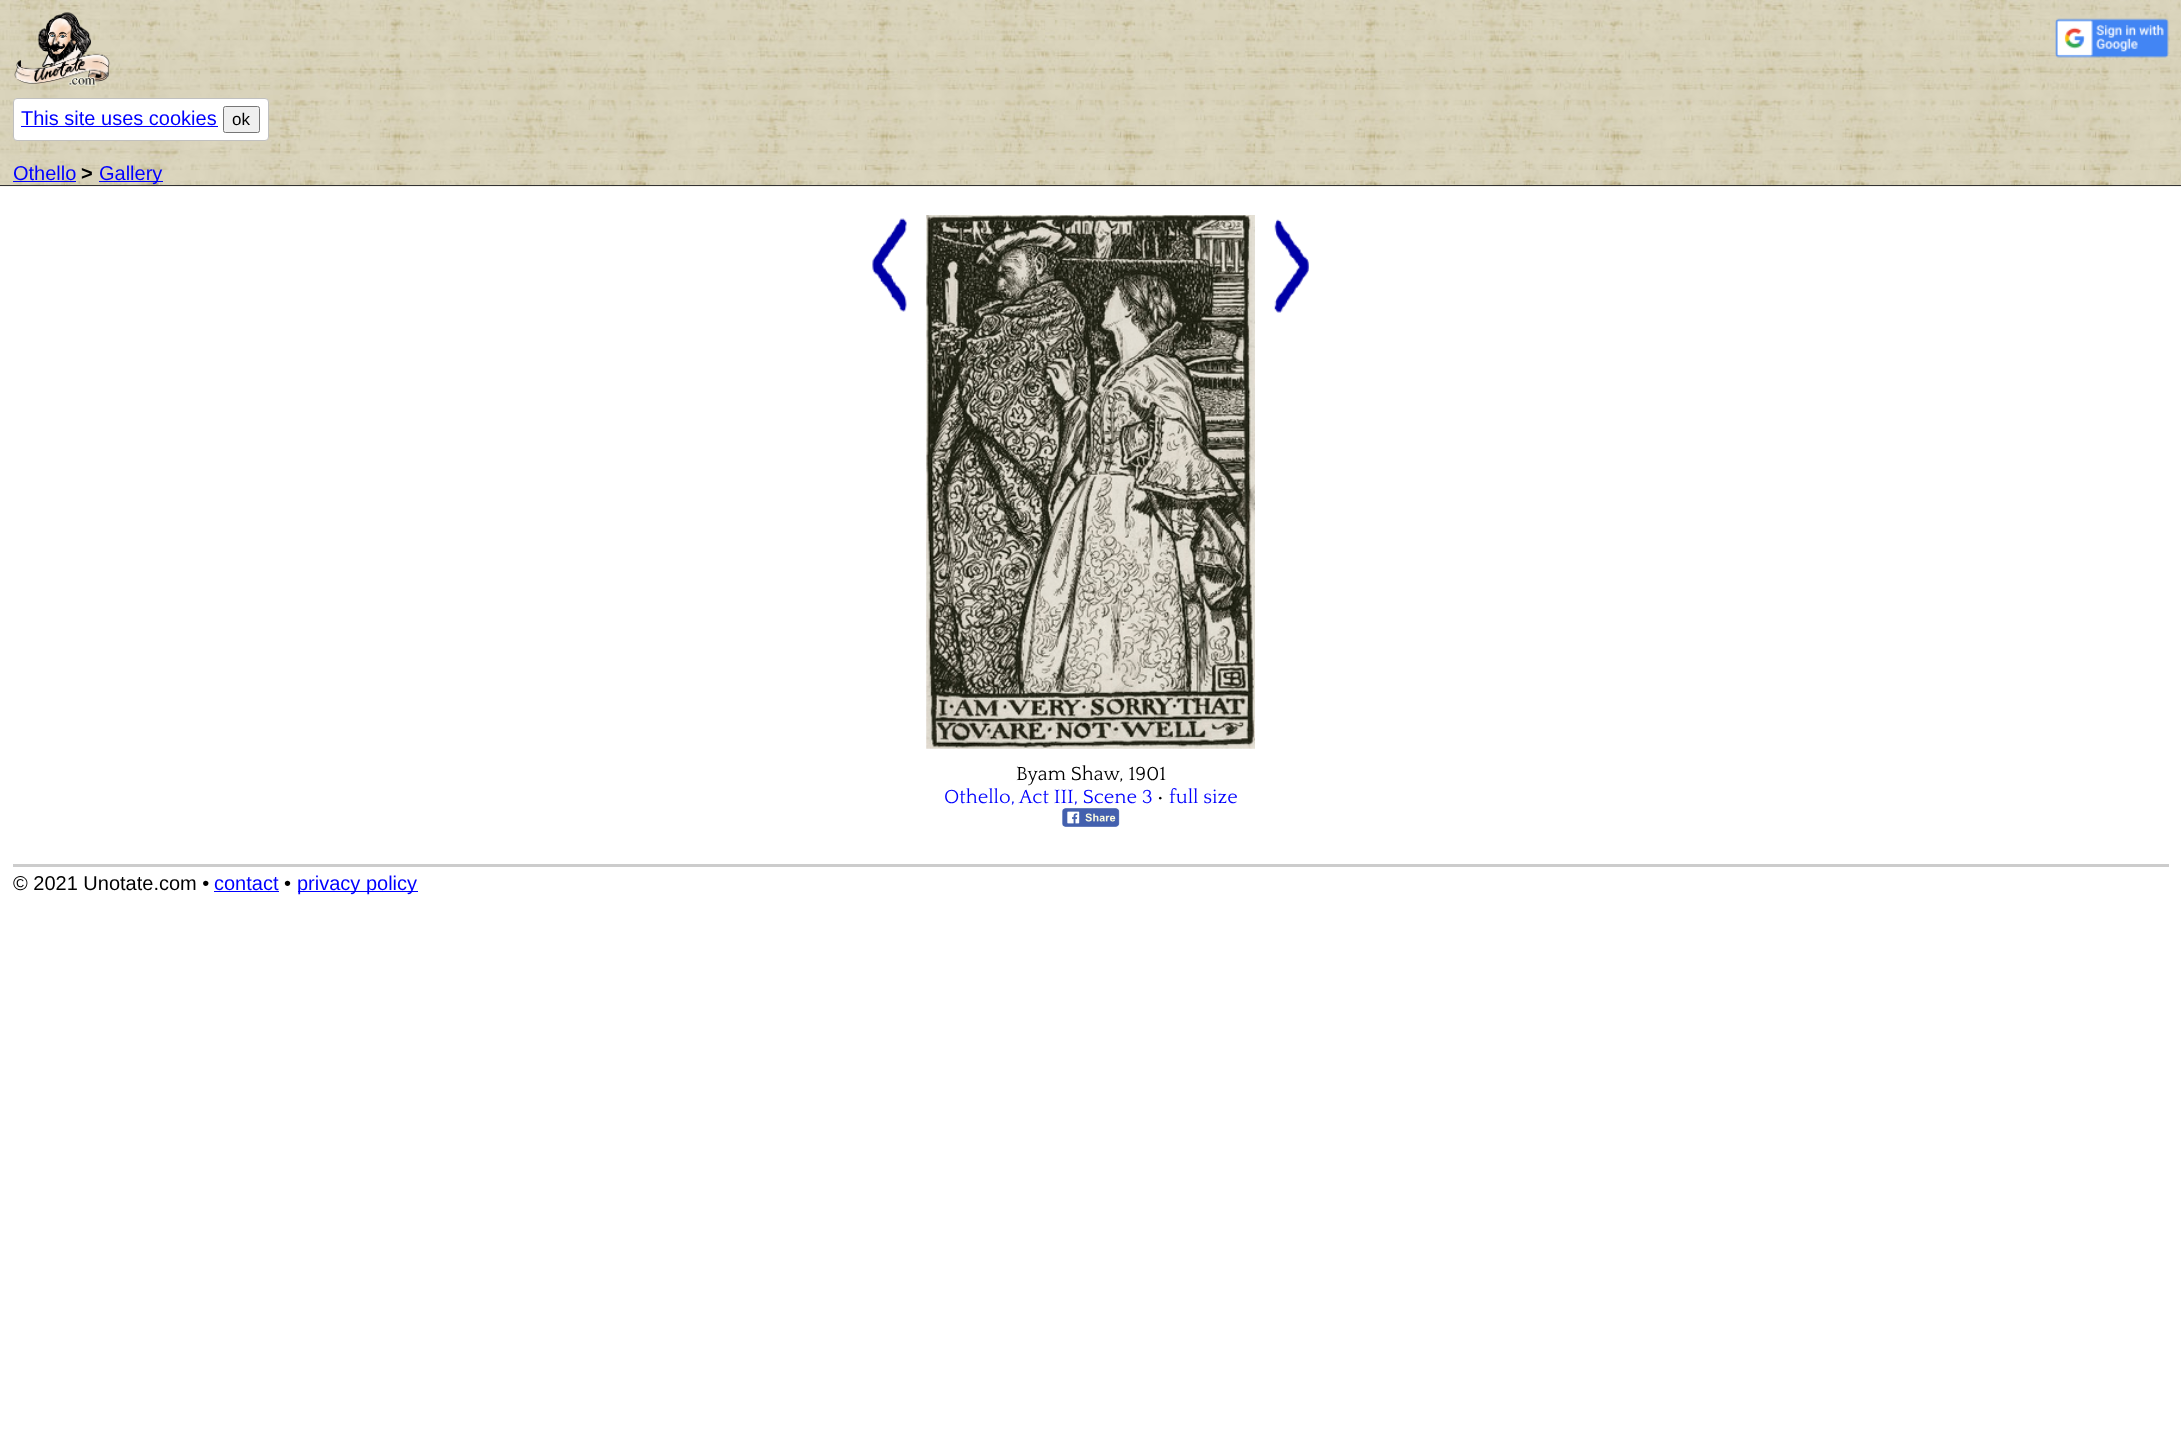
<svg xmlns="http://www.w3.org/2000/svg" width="2181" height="1443">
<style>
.a{font:20px Liberation Sans;fill:#00f}
.b{font:17px Liberation Sans;fill:#000}
.c{font:bold 20px Liberation Sans;fill:#000}
.d{font:20px Quattrocento;fill:#000}
.e{font:20px Quattrocento;fill:#00f}
.f{font:20px Liberation Sans;fill:#000}
</style>
<rect width="100%" height="100%" fill="#fff"/>
<image href="1.png" x="0" y="0" width="2181" height="187"/>
<path fill="#333" d="M0 185h2181v1H0z"/>
<image href="2.png" x="2055" y="18" width="114" height="40"/>
<image href="3.png" x="14" y="12" width="96" height="74"/>
<rect fill="#fff" stroke="#c0c0c0" x="13.5" y="98.5" width="255" height="42" rx="3.5"/>
<path fill="#00f" d="M21 126h197v1H21z"/>
<rect fill="#efefef" stroke="#767676" x="223.5" y="106.5" width="36" height="26" rx="2"/>
<path fill="#00f" d="M13 181h63v1H13z"/>
<path fill="#00f" d="M99 181h64v1H99z"/>
<image href="4.png" x="872" y="218" width="35" height="94"/>
<image href="5.png" x="926" y="215" width="329" height="534"/>
<image href="6.png" x="1274" y="219" width="35" height="94"/>
<image href="7.png" x="1062" y="808" width="58" height="19"/>
<path fill="#ccc" d="M13 864h2156v3H13z"/>
<path fill="#00f" d="M214 891h65v1H214z"/>
<path fill="#00f" d="M298 891h120v1H298z"/>
<text class="a" x="21" y="125">This site uses cookies</text>
<text class="b" x="232" y="125">ok</text>
<text class="a" x="13" y="180">Othello</text>
<text class="c" x="81" y="180">&gt;</text>
<text class="a" x="99" y="180">Gallery</text>
<text class="d" x="1016" y="780">Byam Shaw, 1901</text>
<text class="e" x="944" y="803">Othello,</text>
<text class="e" x="1019" y="803">Act III, Scene 3</text>
<text class="d" x="1157" y="803">•</text>
<text class="e" x="1169" y="803">full size</text>
<text class="f" x="13" y="890">© 2021 Unotate.com •</text>
<text class="a" x="214" y="890">contact</text>
<text class="f" x="284" y="890">•</text>
<text class="a" x="297" y="890">privacy policy</text>
</svg>
